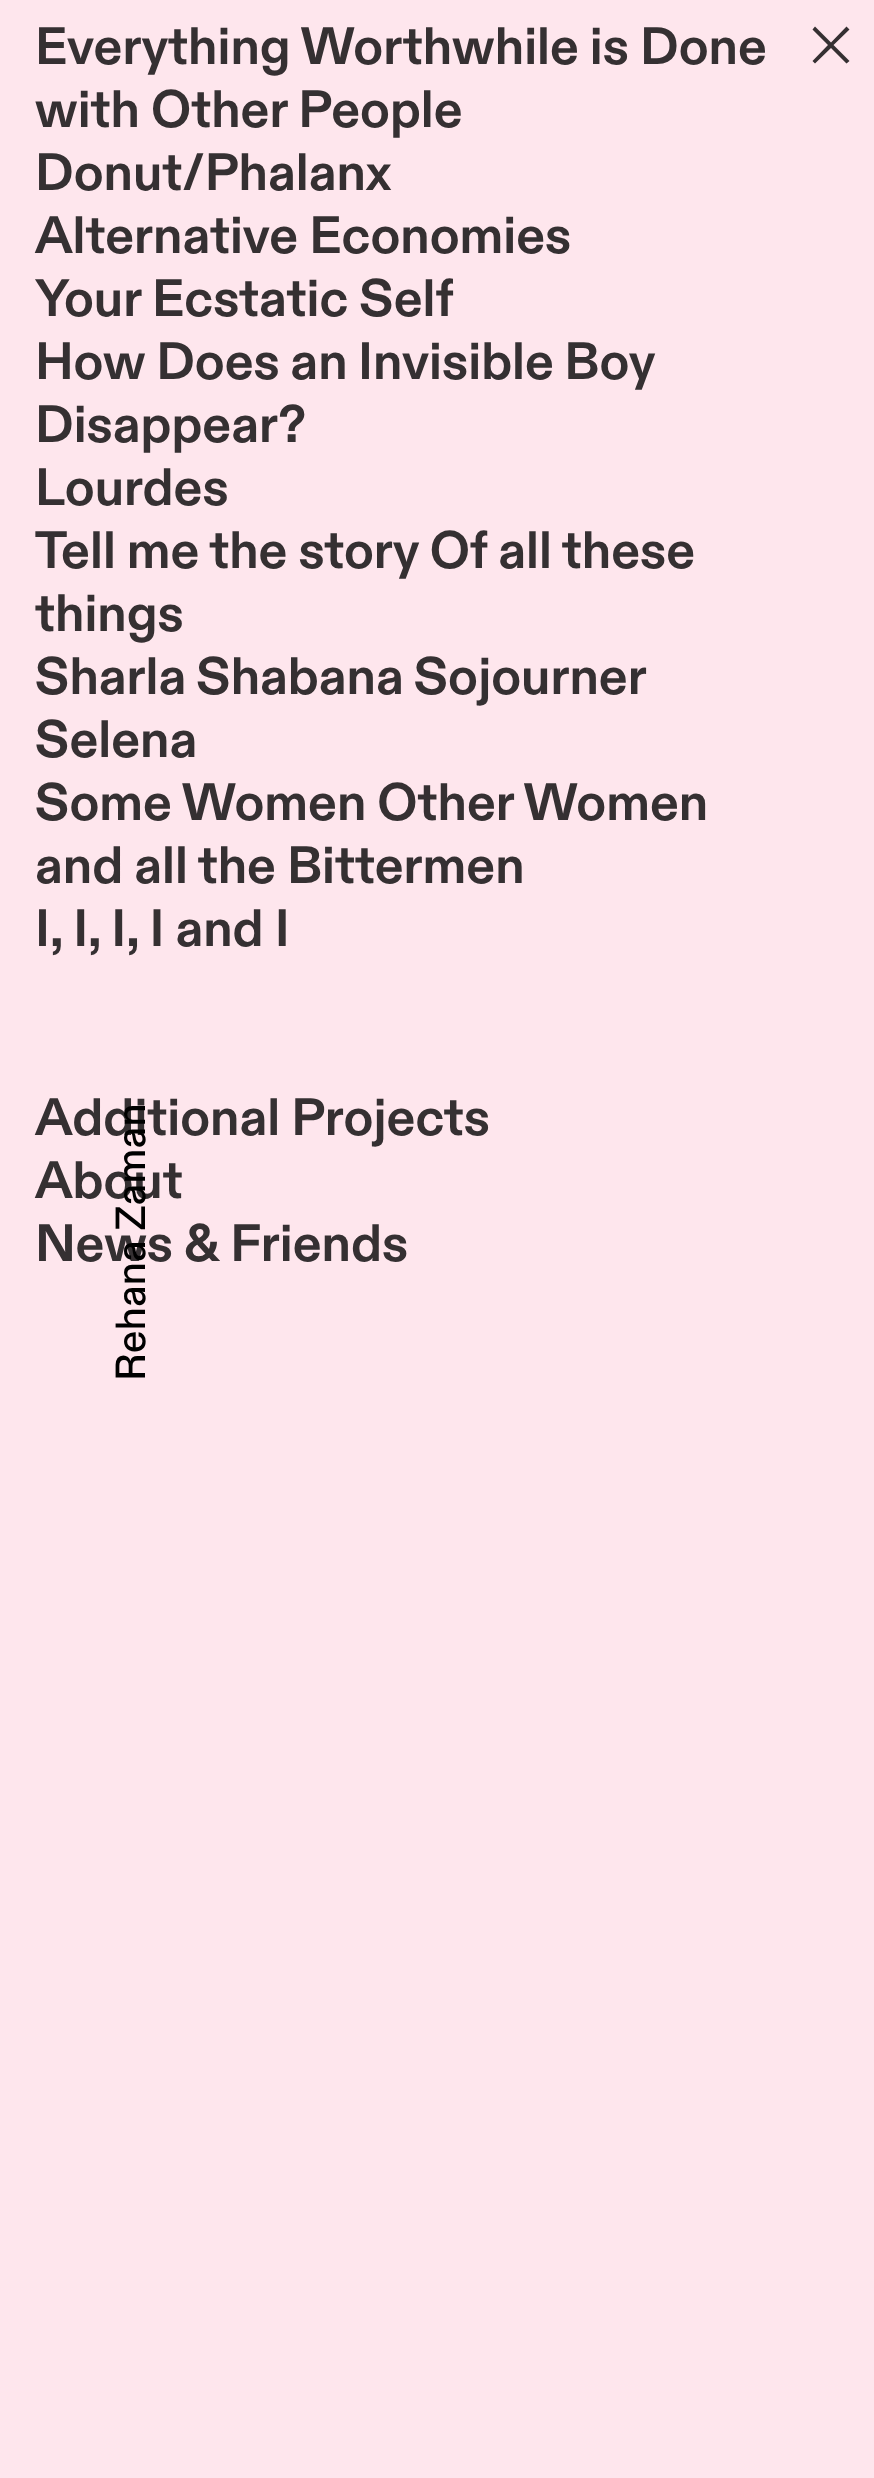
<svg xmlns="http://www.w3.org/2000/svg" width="874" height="2478">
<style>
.a{font:bold 52.5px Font;fill:#353032}
.b{font:500 42px Font;fill:#000}
</style>
<rect width="100%" height="100%" fill="#fee6ed"/>
<path fill="#353032" d="M812.5 29.5l15.5 15.5l-15.5 16l2.5 2.5l16-15.5l15.5 15.5l3-2.5l-16-16l16-15.5l-3-3l-15.5 16l-16-16z"/>
<text class="a" x="35" y="64">Everything Worthwhile is Done</text>
<text class="a" x="35" y="127">with Other People</text>
<text class="a" x="35" y="190">Donut/Phalanx</text>
<text class="a" x="35" y="253">Alternative Economies</text>
<text class="a" x="35" y="316">Your Ecstatic Self</text>
<text class="a" x="35" y="379" word-spacing="-0.5">How Does an Invisible Boy</text>
<text class="a" x="35" y="442">Disappear?</text>
<text class="a" x="35" y="505">Lourdes</text>
<text class="a" x="35" y="568">Tell me the story Of all these</text>
<text class="a" x="35" y="631">things</text>
<text class="a" x="35" y="694" word-spacing="-1">Sharla Shabana Sojourner</text>
<text class="a" x="35" y="757">Selena</text>
<text class="a" x="35" y="820">Some Women Other Women</text>
<text class="a" x="35" y="883">and all the Bittermen</text>
<text class="a" x="35" y="946">I, I, I, I and I</text>
<text class="a" x="35" y="1135">Additional Projects</text>
<text class="a" x="35" y="1198">About</text>
<text class="a" x="35" y="1261">News &amp; Friends</text>
<text class="b" x="145" y="1381" transform="rotate(-90 145 1381)">Rehana Zaman</text>
</svg>
